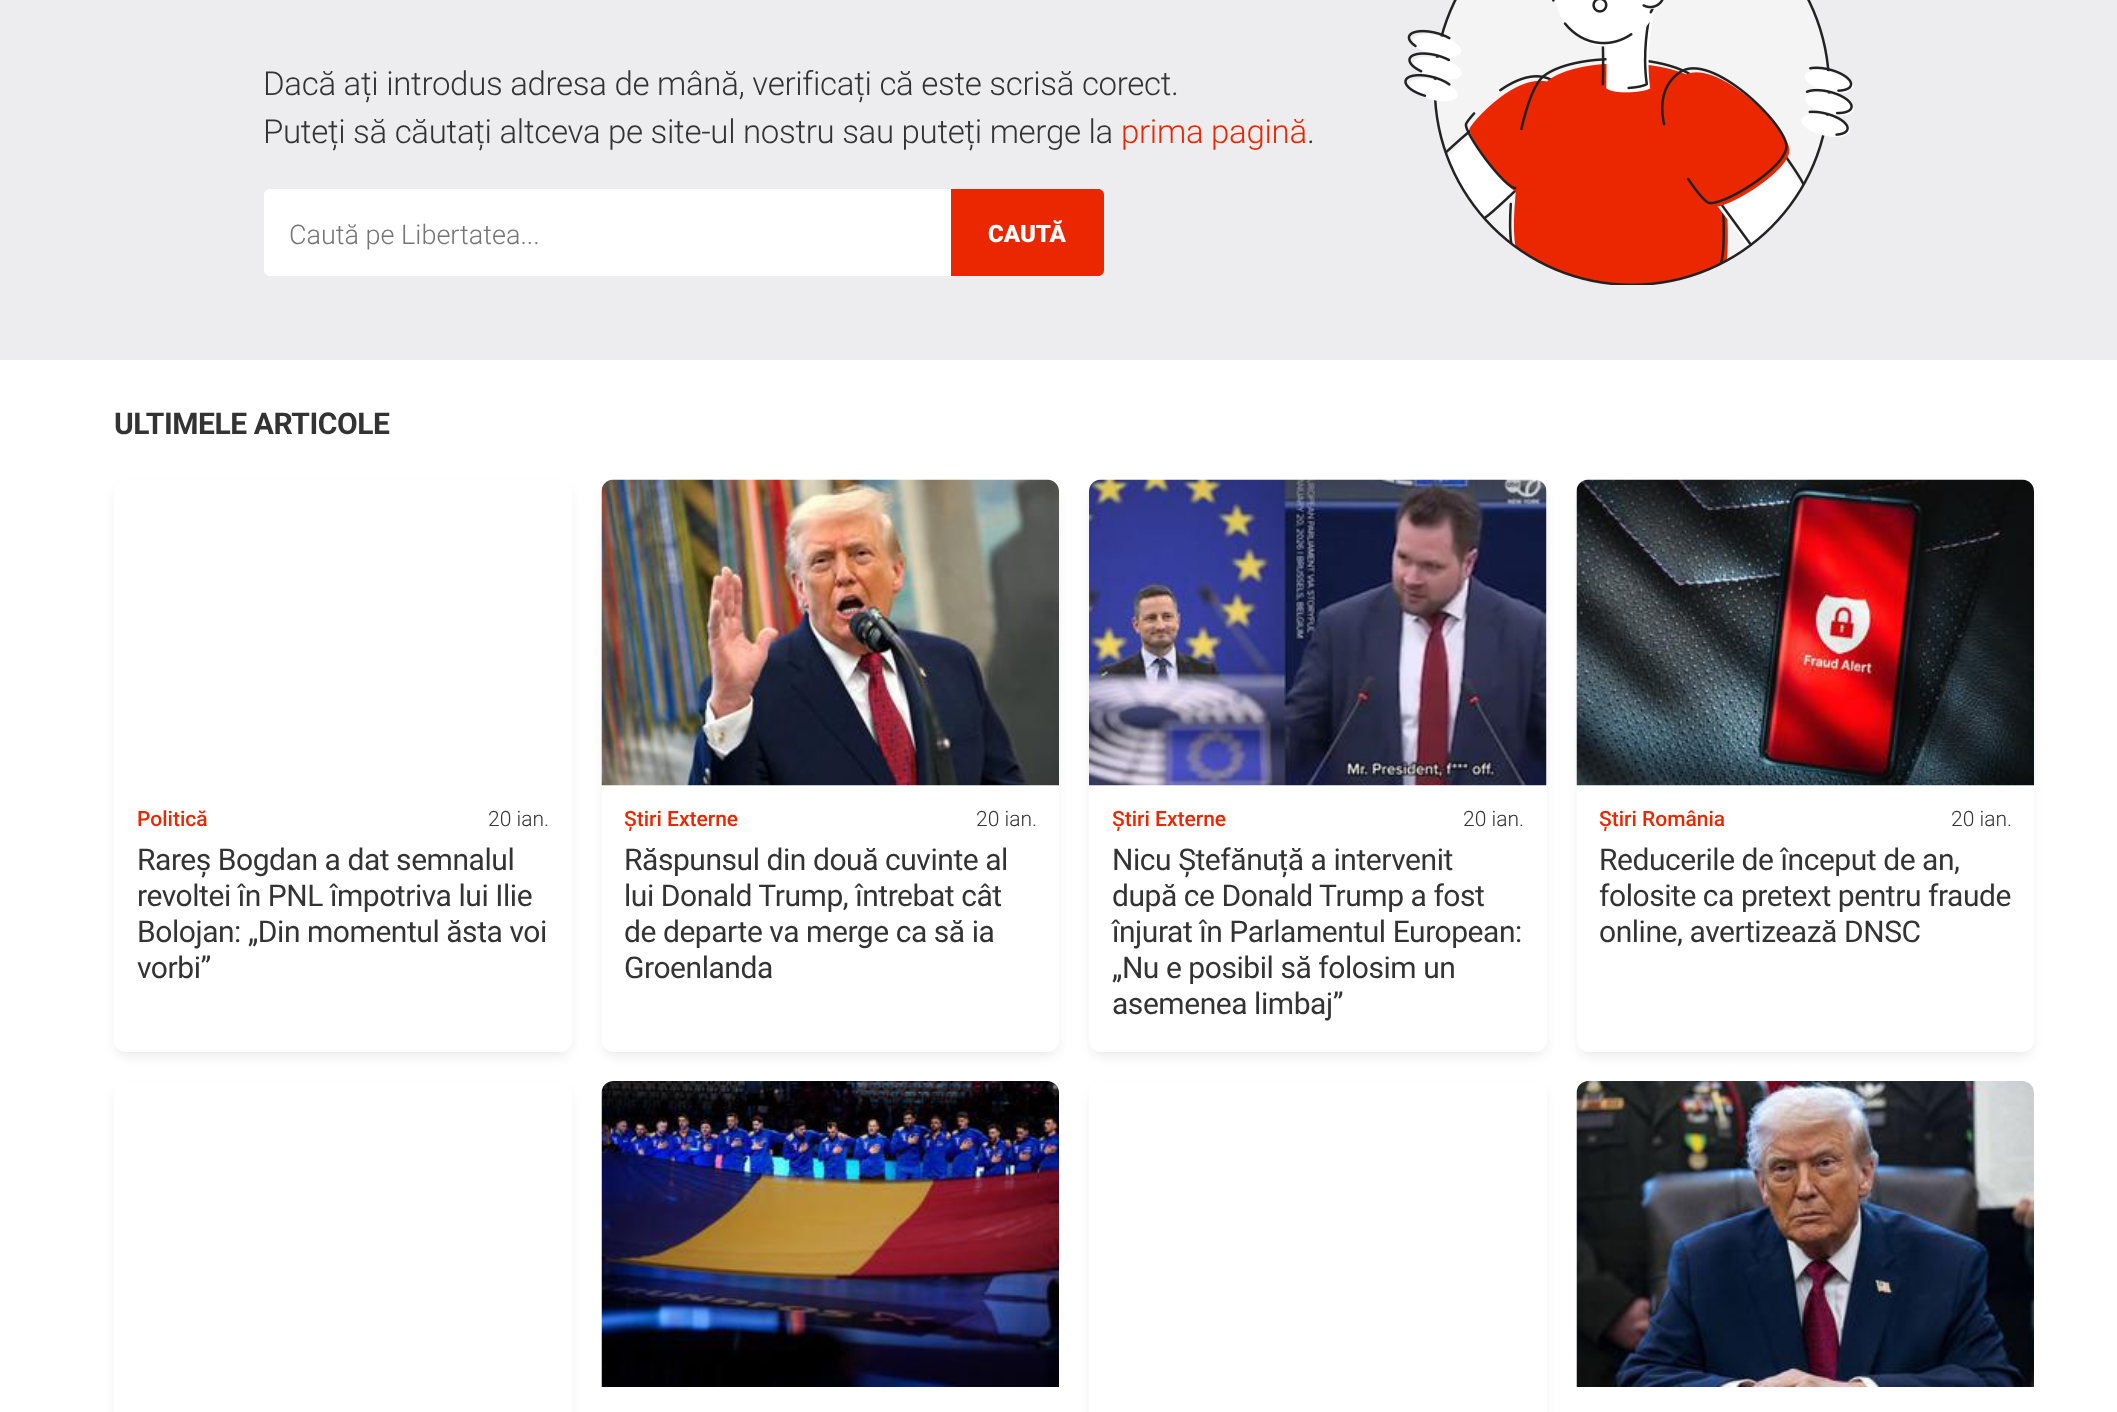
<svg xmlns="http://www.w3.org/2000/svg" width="2117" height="1412">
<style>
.a{font:300 33px Roboto;letter-spacing:-0.3px;fill:#333}
.b{font:300 33px Roboto;letter-spacing:-0.3px;fill:#ea2700}
.c{font:300 27px Roboto;fill:#757575}
.d{font:900 24px Roboto;fill:#fff}
.e{font:bold 30px Roboto;letter-spacing:-0.45px;fill:#333}
.f{font:500 21px Roboto;fill:#ea2700}
.g{font:300 21px Roboto;fill:#333}
.h{font:30px Roboto;letter-spacing:-0.45px;fill:#333}
</style>
<rect width="100%" height="100%" fill="#fff"/>
<path fill="#ededef" d="M0 0h2117v360H0z"/>
<path fill="#fff" d="M270 189h681v87h-681c-3.5 0-6-2.5-6-6v-75c0-3.5 2.5-6 6-6z"/>
<path fill="#ea2700" d="M951 189h147c3.5 0 6 2.5 6 6v75c0 3.5-2.5 6-6 6h-147z"/>
<image href="1.png" x="1404" y="0" width="450" height="285"/>
<rect fill="#1018281a" filter="blur(6px)" x="117" y="489" width="452" height="566" rx="9"/>
<rect fill="#fff" x="114" y="480" width="458" height="572" rx="12"/>
<rect fill="#1018281a" filter="blur(6px)" x="605" y="489" width="451" height="566" rx="9"/>
<rect fill="#fff" x="602" y="480" width="457" height="572" rx="12"/>
<image href="2.png" x="601" y="479" width="458" height="307"/>
<rect fill="#1018281a" filter="blur(6px)" x="1092" y="489" width="452" height="566" rx="9"/>
<rect fill="#fff" x="1089" y="480" width="458" height="572" rx="12"/>
<image href="3.png" x="1089" y="479" width="458" height="307"/>
<rect fill="#1018281a" filter="blur(6px)" x="1580" y="489" width="451" height="566" rx="9"/>
<rect fill="#fff" x="1577" y="480" width="457" height="572" rx="12"/>
<image href="4.png" x="1576" y="479" width="458" height="307"/>
<rect fill="#1018281a" filter="blur(6px)" x="117" y="1091" width="452" height="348" rx="9"/>
<rect fill="#fff" x="114" y="1082" width="458" height="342" rx="12"/>
<image href="5.png" x="601" y="1081" width="458" height="306"/>
<rect fill="#1018281a" filter="blur(6px)" x="1092" y="1091" width="452" height="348" rx="9"/>
<rect fill="#fff" x="1089" y="1082" width="458" height="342" rx="12"/>
<image href="6.png" x="1576" y="1081" width="458" height="306"/>
<text class="a" x="263" y="95">Dacă ați introdus adresa de mână, verificați că este scrisă corect.</text>
<text class="a" x="263" y="143">Puteți să căutați altceva pe site-ul nostru sau puteți merge la</text>
<text class="b" x="1121" y="143">prima pagină</text>
<text class="a" x="1307" y="143">.</text>
<text class="c" x="289" y="244">Caută pe Libertatea...</text>
<text class="d" x="988" y="242">CAUTĂ</text>
<text class="e" x="114" y="434">ULTIMELE ARTICOLE</text>
<text class="f" x="137" y="826">Politică</text>
<text class="g" x="488" y="826">20 ian.</text>
<text class="h" x="137" y="870">Rareș Bogdan a dat semnalul</text>
<text class="h" x="137" y="906">revoltei în PNL împotriva lui Ilie</text>
<text class="h" x="137" y="942">Bolojan: „Din momentul ăsta voi</text>
<text class="h" x="137" y="978">vorbi”</text>
<text class="f" x="624" y="826">Știri Externe</text>
<text class="g" x="976" y="826">20 ian.</text>
<text class="h" x="624" y="870">Răspunsul din două cuvinte al</text>
<text class="h" x="624" y="906">lui Donald Trump, întrebat cât</text>
<text class="h" x="624" y="942">de departe va merge ca să ia</text>
<text class="h" x="624" y="978">Groenlanda</text>
<text class="f" x="1112" y="826">Știri Externe</text>
<text class="g" x="1463" y="826">20 ian.</text>
<text class="h" x="1112" y="870">Nicu Ștefănuță a intervenit</text>
<text class="h" x="1112" y="906">după ce Donald Trump a fost</text>
<text class="h" x="1112" y="942">înjurat în Parlamentul European:</text>
<text class="h" x="1112" y="978">„Nu e posibil să folosim un</text>
<text class="h" x="1112" y="1014">asemenea limbaj”</text>
<text class="f" x="1599" y="826">Știri România</text>
<text class="g" x="1951" y="826">20 ian.</text>
<text class="h" x="1599" y="870">Reducerile de început de an,</text>
<text class="h" x="1599" y="906">folosite ca pretext pentru fraude</text>
<text class="h" x="1599" y="942">online, avertizează DNSC</text>
</svg>
